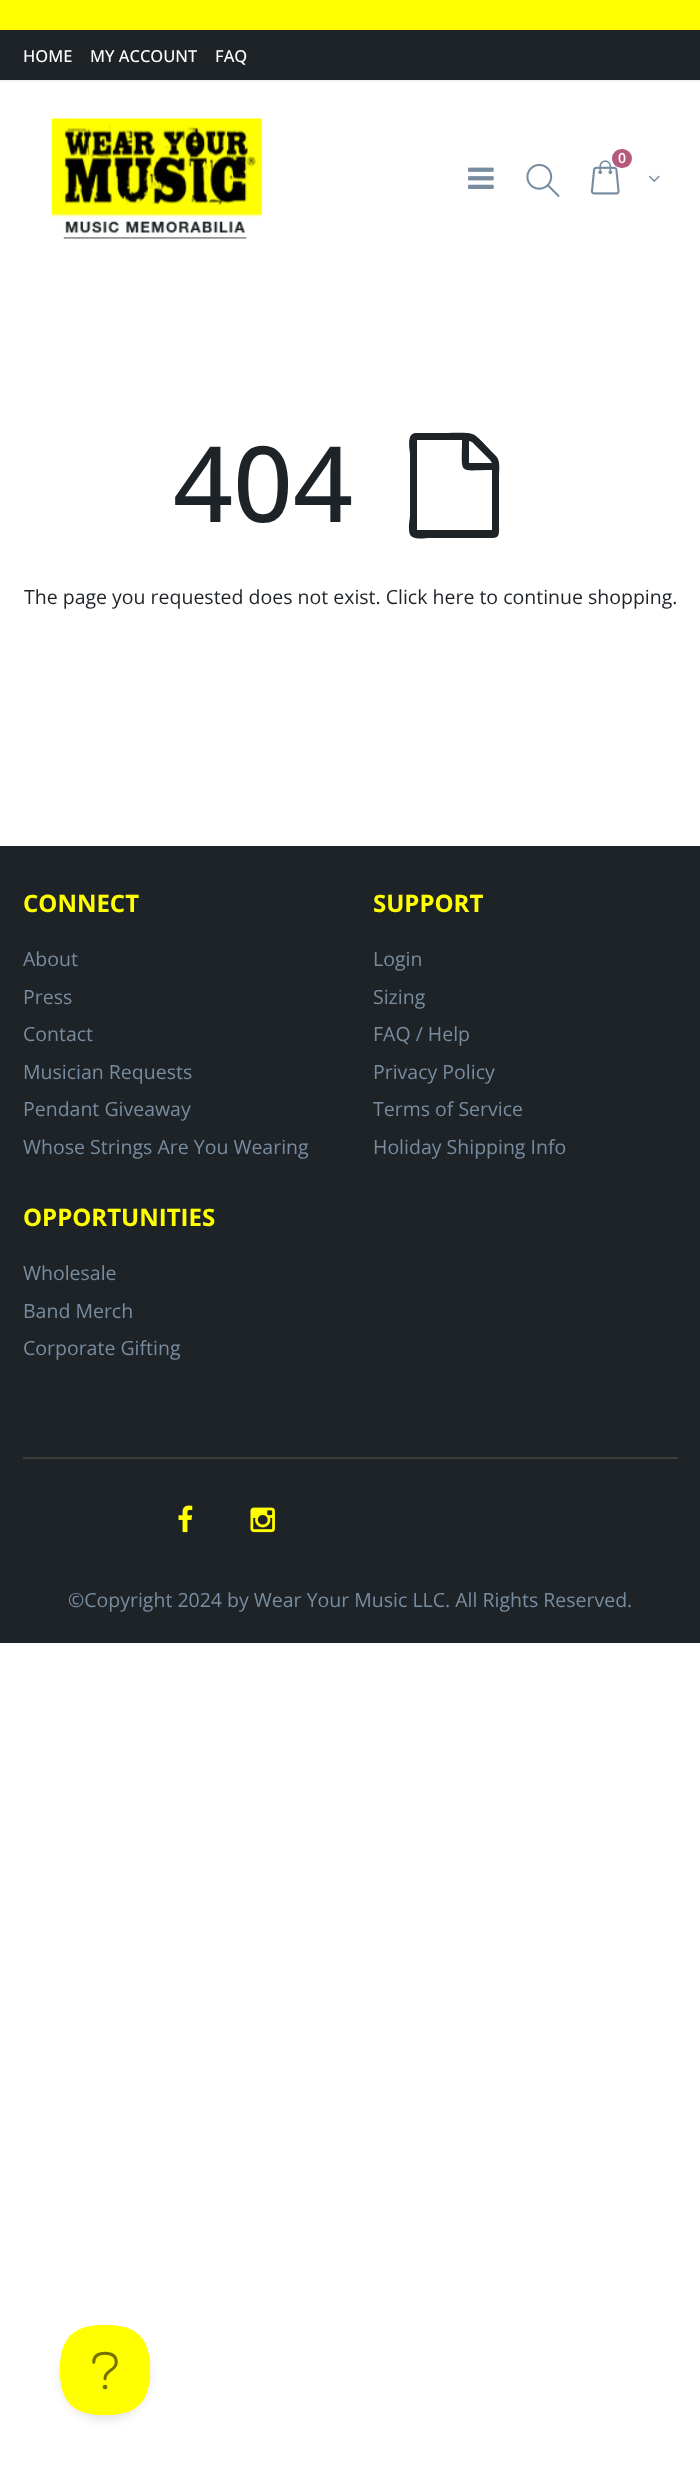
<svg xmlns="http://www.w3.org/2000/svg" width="700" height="2475">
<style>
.a{font:500 16.5px Open Sans;fill:#fff}
.b{font:600 14px Open Sans;fill:#fff}
.c{font:500 105px Open Sans;fill:#1e2328}
.d{font:19.5px Open Sans;fill:#1e2328}
.e{font:bold 24px Open Sans;fill:#ff0}
.f{font:19.5px Open Sans;fill:#788ca0}
</style>
<rect width="100%" height="100%" fill="#fff"/>
<path fill="#ff0" d="M0 0h700v30H0z"/>
<path fill="#1e2328" d="M0 30h700v50H0z"/>
<path fill="#f2f2f3" d="M0 80h700v2H0z"/>
<image href="1.png" x="51" y="118" width="211" height="121"/>
<image href="2.png" x="590" y="160" width="30" height="35"/>
<rect fill="#b7597c" x="612" y="149" width="20" height="19" rx="9.5"/>
<image href="3.png" x="648" y="175" width="12" height="7"/>
<image href="4.png" x="468" y="167" width="26" height="22"/>
<image href="5.png" x="526" y="163" width="34" height="34"/>
<path fill="#1e2328" d="M495 455c6 5 4 14 4 21v45c0 19 2 17-18 17h-53c-1 0-13 2-17-2c-4-4-1-18-1-20v-62c0-3-4-20 5-21h26c39 0 28-4 54 22zm-26-14v22h23l-2-3l-18-18zm23 89v-60c-35 0-30 6-30-30h-45v90z"/>
<path fill="#1e2328" d="M0 846h700v797H0z"/>
<path fill="#3d3d38" d="M23 1457h655v2H23z"/>
<image href="6.png" x="178" y="1505" width="15" height="28"/>
<image href="7.png" x="250" y="1507" width="25" height="26"/>
<rect fill="#0000001a" filter="blur(5px)" x="60" y="2331" width="90" height="90" rx="45"/>
<image href="8.png" x="60" y="2325" width="90" height="90"/>
<text class="a" x="23" y="62">HOME</text>
<text class="a" x="90" y="62">MY ACCOUNT</text>
<text class="a" x="215" y="62">FAQ</text>
<text class="b" x="618" y="163">0</text>
<text class="c" x="173" y="522">404</text>
<text class="d" x="24" y="604">The page you requested does not exist. Click here to continue shopping.</text>
<text class="e" x="23" y="912">CONNECT</text>
<text class="f" x="23" y="966">About</text>
<text class="f" x="23" y="1004">Press</text>
<text class="f" x="23" y="1041">Contact</text>
<text class="f" x="23" y="1079">Musician Requests</text>
<text class="f" x="23" y="1116">Pendant Giveaway</text>
<text class="f" x="23" y="1154">Whose Strings Are You Wearing</text>
<text class="e" x="373" y="912">SUPPORT</text>
<text class="f" x="373" y="966">Login</text>
<text class="f" x="373" y="1004">Sizing</text>
<text class="f" x="373" y="1041">FAQ / Help</text>
<text class="f" x="373" y="1079">Privacy Policy</text>
<text class="f" x="373" y="1116">Terms of Service</text>
<text class="f" x="373" y="1154">Holiday Shipping Info</text>
<text class="e" x="23" y="1226">OPPORTUNITIES</text>
<text class="f" x="23" y="1280">Wholesale</text>
<text class="f" x="23" y="1318">Band Merch</text>
<text class="f" x="23" y="1355">Corporate Gifting</text>
<text class="f" x="68" y="1607">©Copyright 2024 by Wear Your Music LLC. All Rights Reserved.</text>
</svg>
